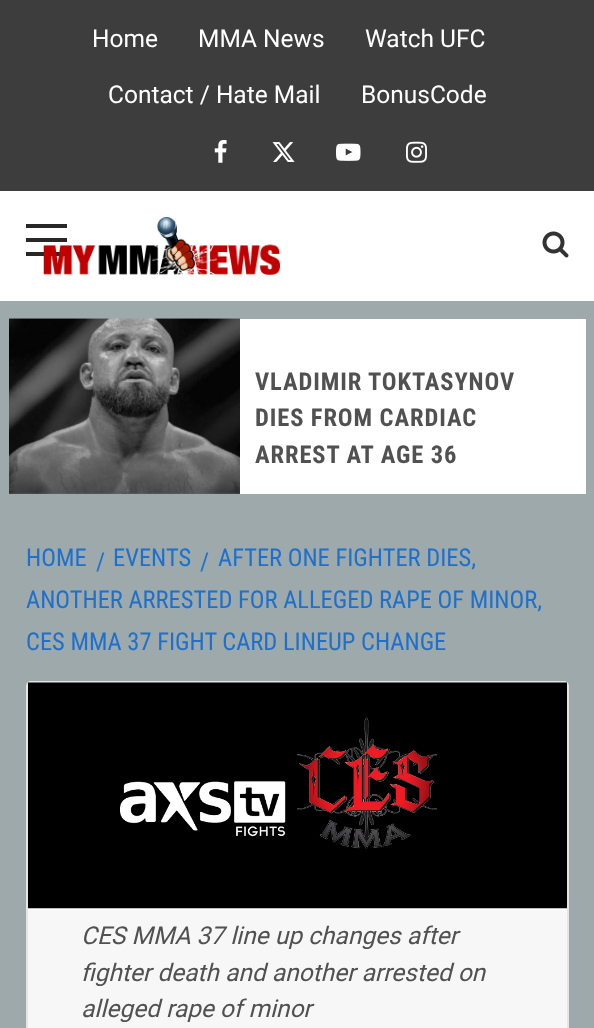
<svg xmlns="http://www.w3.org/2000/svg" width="594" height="1028">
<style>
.a{font:24.5px Roboto;fill:#fff}
.b{font:bold 24.5px Roboto Condensed;letter-spacing:0.9px;fill:#515151}
.c{font:24.5px Roboto Condensed;fill:#1e70cd}
.d{font:italic 24.5px Roboto;fill:#515151}
</style>
<defs>
<linearGradient id="g1" gradientUnits="userSpaceOnUse" x1="124" y1="319" x2="124" y2="494"><stop offset="0.4" stop-color="#000" stop-opacity="0"/><stop offset="1" stop-color="#000" stop-opacity="0.52"/></linearGradient>
</defs>
<rect width="100%" height="100%" fill="#9da9aa"/>
<path fill="#3d3d3d" d="M0 0h594v191H0z"/>
<image href="1.png" x="214" y="140" width="13" height="23"/>
<image href="2.png" x="272" y="142" width="23" height="20"/>
<image href="3.png" x="336" y="143" width="25" height="18"/>
<image href="4.png" x="406" y="141" width="21" height="22"/>
<path fill="#fff" d="M0 191h594v110H0z"/>
<path fill="#282828" d="M26 238h41v4H26z"/>
<path fill="#282828" d="M26 224h41v4H26z"/>
<path fill="#282828" d="M26 252h41v4H26z"/>
<image href="5.png" x="43" y="217" width="237" height="58"/>
<image href="6.png" x="542" y="231" width="27" height="27"/>
<path fill="#fff" d="M9 319h577v175H9z"/>
<image href="7.png" x="9" y="318" width="231" height="176"/>
<path fill="url(#g1)" d="M9 394h231v100H9z"/>
<rect fill="#fff" x="26" y="681" width="543" height="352" rx="5"/>
<rect fill="none" stroke="#0001011a" stroke-width="2" x="27" y="682" width="541" height="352" rx="4"/>
<image href="8.png" x="28" y="682" width="539" height="227"/>
<path fill="#f7f7f7" d="M28 910h539v118H28z"/>
<text class="a" x="92" y="47">Home</text>
<text class="a" x="198" y="47">MMA News</text>
<text class="a" x="365" y="47">Watch UFC</text>
<text class="a" x="108" y="103">Contact / Hate Mail</text>
<text class="a" x="361" y="103">BonusCode</text>
<text class="b" x="255" y="390">VLADIMIR TOKTASYNOV</text>
<text class="b" x="255" y="426">DIES FROM CARDIAC</text>
<text class="b" x="255" y="463">ARREST AT AGE 36</text>
<text class="c" x="200" y="570">/</text>
<text class="c" x="218" y="566">AFTER ONE FIGHTER DIES,</text>
<text class="c" x="26" y="608">ANOTHER ARRESTED FOR ALLEGED RAPE OF MINOR,</text>
<text class="c" x="26" y="650">CES MMA 37 FIGHT CARD LINEUP CHANGE</text>
<text class="c" x="26" y="566">HOME</text>
<text class="c" x="96" y="570">/</text>
<text class="c" x="113" y="566">EVENTS</text>
<text class="d" x="81" y="944">CES MMA 37 line up changes after</text>
<text class="d" x="81" y="981">fighter death and another arrested on</text>
<text class="d" x="81" y="1017">alleged rape of minor</text>
</svg>
